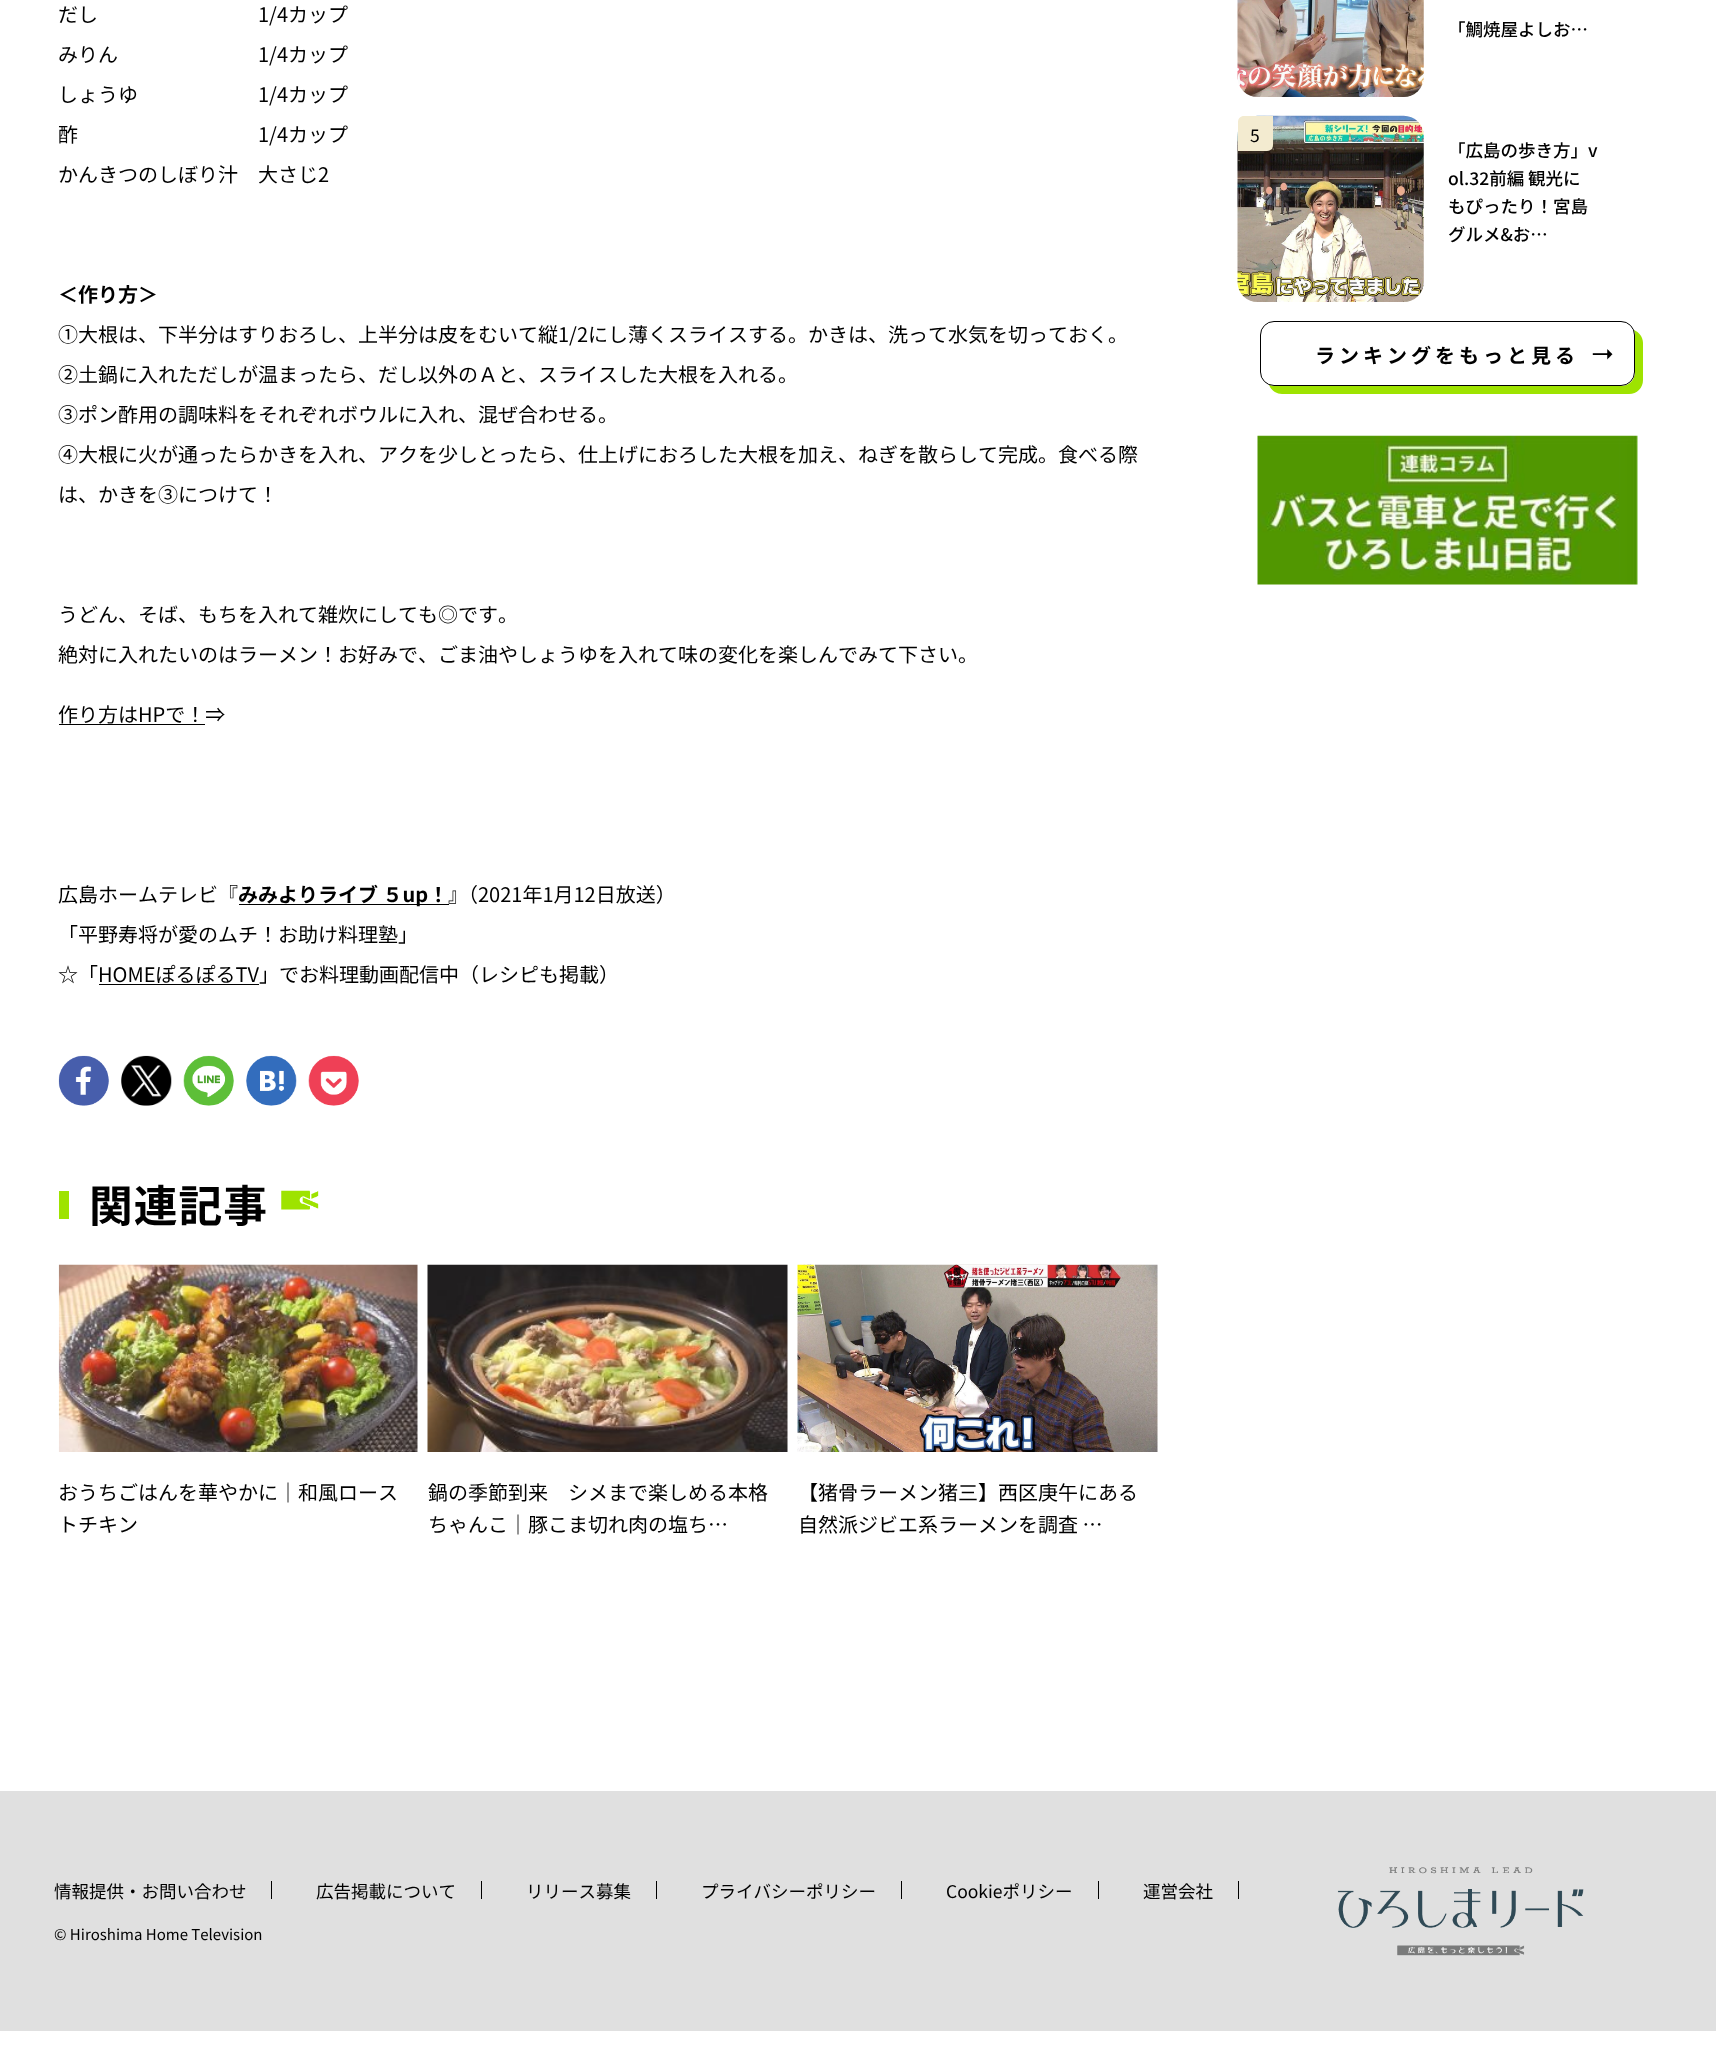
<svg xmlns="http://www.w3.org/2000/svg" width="1716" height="2048">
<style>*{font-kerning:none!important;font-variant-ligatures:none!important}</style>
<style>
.a{font:20px Noto Sans JP;fill:#000}
.b{font:bold 20px Noto Sans JP;fill:#000}
.c{font:bold 43.75px Noto Sans JP;letter-spacing:1px;fill:#000}
.d{font:500 17.5px Noto Sans JP;fill:#000}
.e{font:17.5px Noto Sans JP;fill:#000}
.f{font:bold 20px Noto Sans JP;letter-spacing:4px;fill:#000}
.g{font:15px Noto Sans JP;fill:#000}
</style>
<rect width="100%" height="100%" fill="#fff"/>
<path fill="#000" d="M59 724h146v1H59z"/>
<path fill="#000" d="M239 904h210v1H239z"/>
<path fill="#000" d="M99 984h160v1H99z"/>
<image href="1.png" x="58" y="1055" width="51" height="51"/>
<image href="2.png" x="121" y="1055" width="51" height="51"/>
<image href="3.png" x="183" y="1055" width="51" height="51"/>
<image href="4.png" x="246" y="1055" width="51" height="51"/>
<image href="5.png" x="308" y="1055" width="51" height="51"/>
<path fill="#9ee300" d="M59 1191h10v28H59z"/>
<image href="6.png" x="281" y="1190" width="38" height="20"/>
<image href="7.png" x="58" y="1264" width="360" height="188"/>
<image href="8.png" x="427" y="1264" width="361" height="188"/>
<image href="9.png" x="797" y="1264" width="361" height="188"/>
<image href="10.png" x="1237" y="0" width="187" height="97"/>
<image href="11.png" x="1237" y="115" width="187" height="187"/>
<path fill="#f3ebd0" d="M1244 116h29v29c0 3.5-2.5 6-6 6h-29v-29c0-3.5 2.5-6 6-6z"/>
<path fill="#9ee300" d="M1269 385c2 5 7 9 13 9h347c8 0 14-6 14-14v-37c0-6-4-11-9-13l1 5v37c0 8-6 14-14 14h-347z"/>
<rect fill="#fff" stroke="#000" x="1260.5" y="321.5" width="374" height="64" rx="13.5"/>
<image href="12.png" x="1592" y="349" width="21" height="11"/>
<image href="13.png" x="1257" y="435" width="381" height="150"/>
<path fill="#e0e0e0" d="M0 1791h1716v240H0z"/>
<path fill="#000" d="M271 1881h1v18H271z"/>
<path fill="#000" d="M481 1881h1v18H481z"/>
<path fill="#000" d="M656 1881h1v18H656z"/>
<path fill="#000" d="M901 1881h1v18H901z"/>
<path fill="#000" d="M1098 1881h1v18H1098z"/>
<path fill="#000" d="M1238 1881h1v18H1238z"/>
<image href="14.png" x="1337" y="1867" width="247" height="89"/>
<text class="a" x="58" y="22">だし　　　　　　　　1/4カップ</text>
<text class="a" x="58" y="62">みりん　　　　　　　1/4カップ</text>
<text class="a" x="58" y="102">しょうゆ　　　　　　1/4カップ</text>
<text class="a" x="58" y="142">酢　　　　　　　　　1/4カップ</text>
<text class="a" x="58" y="182">かんきつのしぼり汁　大さじ2</text>
<text class="b" x="58" y="302">＜作り方＞</text>
<text class="a" x="58" y="342">①大根は、下半分はすりおろし、上半分は皮をむいて縦1/2にし薄くスライスする。かきは、洗って水気を切っておく。</text>
<text class="a" x="58" y="382">②土鍋に入れただしが温まったら、だし以外のＡと、スライスした大根を入れる。</text>
<text class="a" x="58" y="422">③ポン酢用の調味料をそれぞれボウルに入れ、混ぜ合わせる。</text>
<text class="a" x="58" y="462">④大根に火が通ったらかきを入れ、アクを少しとったら、仕上げにおろした大根を加え、ねぎを散らして完成。食べる際</text>
<text class="a" x="58" y="502">は、かきを③につけて！</text>
<text class="a" x="58" y="622">うどん、そば、もちを入れて雑炊にしても◎です</text>
<text class="a" x="498" y="622">。</text>
<text class="a" x="58" y="662">絶対に入れたいのはラーメン！お好みで、ごま油やしょうゆを入れて味の変化を楽しんでみて下さい。</text>
<text class="a" x="58" y="722">作り方はHPで！⇒</text>
<text class="a" x="58" y="902">広島ホームテレビ『</text>
<text class="b" x="238" y="902">みみよりライブ ５up！</text>
<text class="a" x="448" y="902">』（2021年1月12日放送）</text>
<text class="a" x="58" y="942">「平野寿将が愛のムチ！お助け料理塾」</text>
<text class="a" x="58" y="982">☆「HOMEぽるぽるTV」でお料理動画配信中（レシピも掲載）</text>
<text class="c" x="89" y="1222">関連記事</text>
<text class="a" x="58" y="1500">おうちごはんを華やかに｜和風ロース</text>
<text class="a" x="58" y="1532">トチキン</text>
<text class="a" x="428" y="1500">鍋の季節到来　シメまで楽しめる本格</text>
<text class="a" x="428" y="1532">ちゃんこ｜豚こま切れ肉の塩ち…</text>
<text class="a" x="798" y="1500">【猪骨ラーメン猪三】西区庚午にある</text>
<text class="a" x="798" y="1532">自然派ジビエ系ラーメンを調査 …</text>
<text class="d" x="1448" y="36">「鯛焼屋よしお…</text>
<text class="e" x="1250" y="142">5</text>
<text class="d" x="1448" y="157">「広島の歩き方」v</text>
<text class="d" x="1448" y="185">ol.32前編 観光に</text>
<text class="d" x="1448" y="213">もぴったり！宮島</text>
<text class="d" x="1448" y="241">グルメ&amp;お…</text>
<text class="f" x="1315" y="363">ランキングをもっと見る</text>
<text class="e" x="54" y="1898">情報提供・お問い合わせ</text>
<text class="e" x="316" y="1898">広告掲載について</text>
<text class="e" x="526" y="1898">リリース募集</text>
<text class="e" x="701" y="1898">プライバシーポリシー</text>
<text class="e" x="946" y="1898">Cookieポリシー</text>
<text class="e" x="1143" y="1898">運営会社</text>
<text class="g" x="54" y="1940">© Hiroshima Home Television</text>
</svg>
